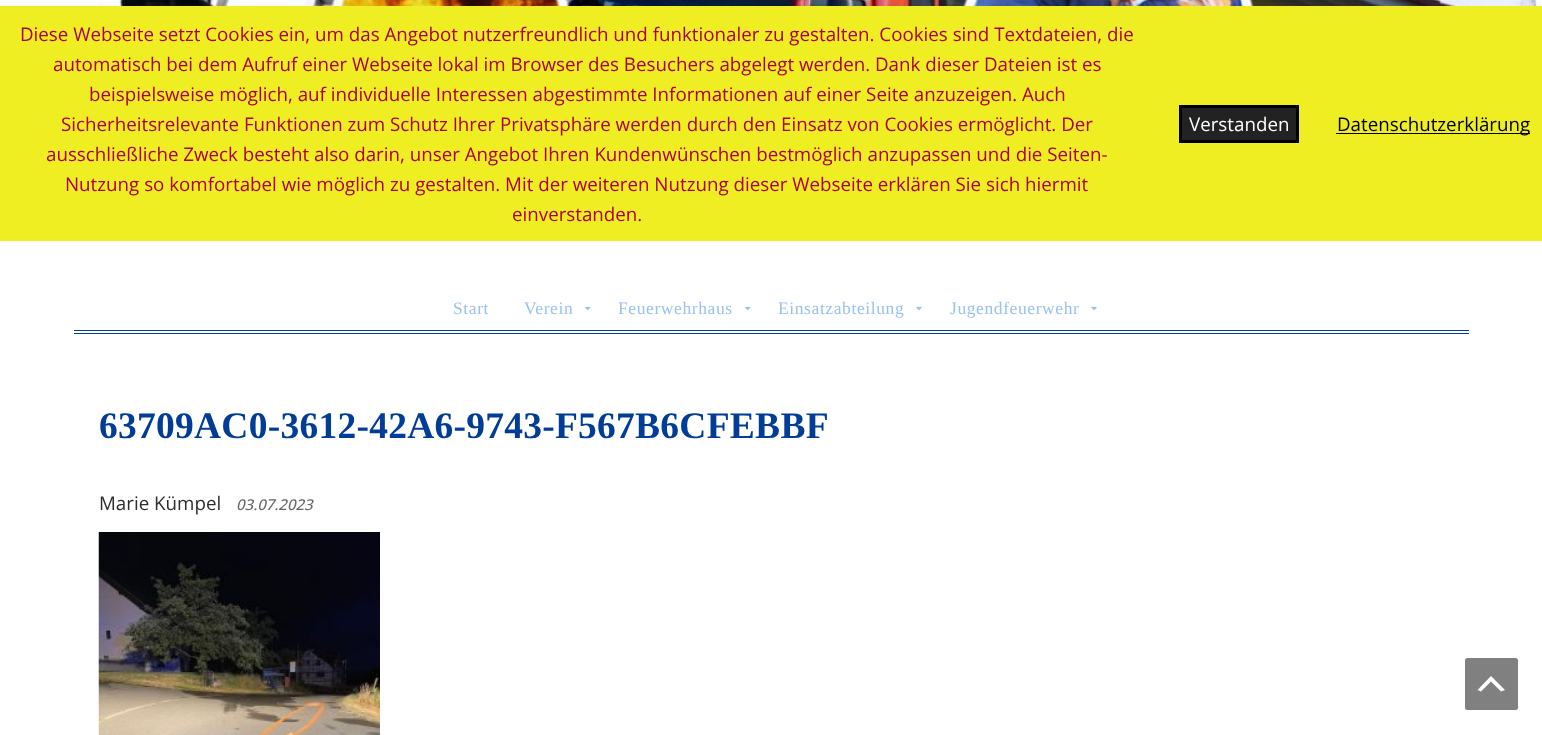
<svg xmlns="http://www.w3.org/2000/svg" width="1542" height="735">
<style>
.a{font:18.75px Open Sans;fill:#ad0036}
.b{font:18.75px Open Sans;fill:#fff}
.c{font:18.75px Open Sans;fill:#000}
.d{font:17.5px Liberation Serif;letter-spacing:0.6px;fill:#9bc2ef}
.e{font:bold 37.5px Liberation Serif;letter-spacing:0.25px;fill:#013d96}
.f{font:18.75px Open Sans;fill:#2d2d2d}
.g{font:italic 500 15px Open Sans;fill:#666}
</style>
<rect width="100%" height="100%" fill="#fff"/>
<path fill="#ee2" d="M0 6h1542v235H0z"/>
<path fill="#222" stroke="#000" stroke-width="3" d="M1180.5 106.5h117v35H1180.5z"/>
<path fill="#000" d="M1336 133h194v1H1336z"/>
<image href="1.png" x="98" y="0" width="1439" height="6"/>
<path fill="#013d96" d="M74 330h1395v1H74z"/>
<path fill="#013d96" d="M74 333h1395v1H74z"/>
<image href="2.png" x="585" y="306" width="6" height="5"/>
<image href="2.png" x="745" y="306" width="6" height="5"/>
<image href="3.png" x="916" y="306" width="6" height="4"/>
<image href="3.png" x="1091" y="306" width="6" height="4"/>
<image href="4.png" x="98" y="532" width="282" height="203"/>
<rect fill="#808080" x="1465" y="658" width="53" height="52" rx="2.5"/>
<path fill="#fff" d="M1501 691.5l-10-10l-10 10l-3.5-1.5l13.5-14l14 14z"/>
<text class="a" x="20" y="41">Diese Webseite setzt Cookies ein, um das Angebot nutzerfreundlich und funktionaler zu gestalten. Cookies sind Textdateien, die</text>
<text class="a" x="53" y="71">automatisch bei dem Aufruf einer Webseite lokal im Browser des Besuchers abgelegt werden. Dank dieser Dateien ist es</text>
<text class="a" x="89" y="101">beispielsweise möglich, auf individuelle Interessen abgestimmte Informationen auf einer Seite anzuzeigen. Auch</text>
<text class="a" x="61" y="131">Sicherheitsrelevante Funktionen zum Schutz Ihrer Privatsphäre werden durch den Einsatz von Cookies ermöglicht. Der</text>
<text class="a" x="46" y="161">ausschließliche Zweck besteht also darin, unser Angebot Ihren Kundenwünschen bestmöglich anzupassen und die Seiten-</text>
<text class="a" x="65" y="191">Nutzung so komfortabel wie möglich zu gestalten. Mit der weiteren Nutzung dieser Webseite erklären Sie sich hiermit</text>
<text class="a" x="512" y="221">einverstanden.</text>
<text class="b" x="1189" y="131">Verstanden</text>
<text class="c" x="1337" y="131">Datenschutzerklärung</text>
<text class="d" x="453" y="314">Start</text>
<text class="d" x="524" y="314">Verein</text>
<text class="d" x="618" y="314">Feuerwehrhaus</text>
<text class="d" x="778" y="314">Einsatzabteilung</text>
<text class="d" x="950" y="314">Jugendfeuerwehr</text>
<text class="e" x="99" y="438">63709AC0-3612-42A6-9743-F567B6CFEBBF</text>
<text class="f" x="99" y="510">Marie Kümpel</text>
<text class="g" x="236" y="510">03.07.2023</text>
</svg>
